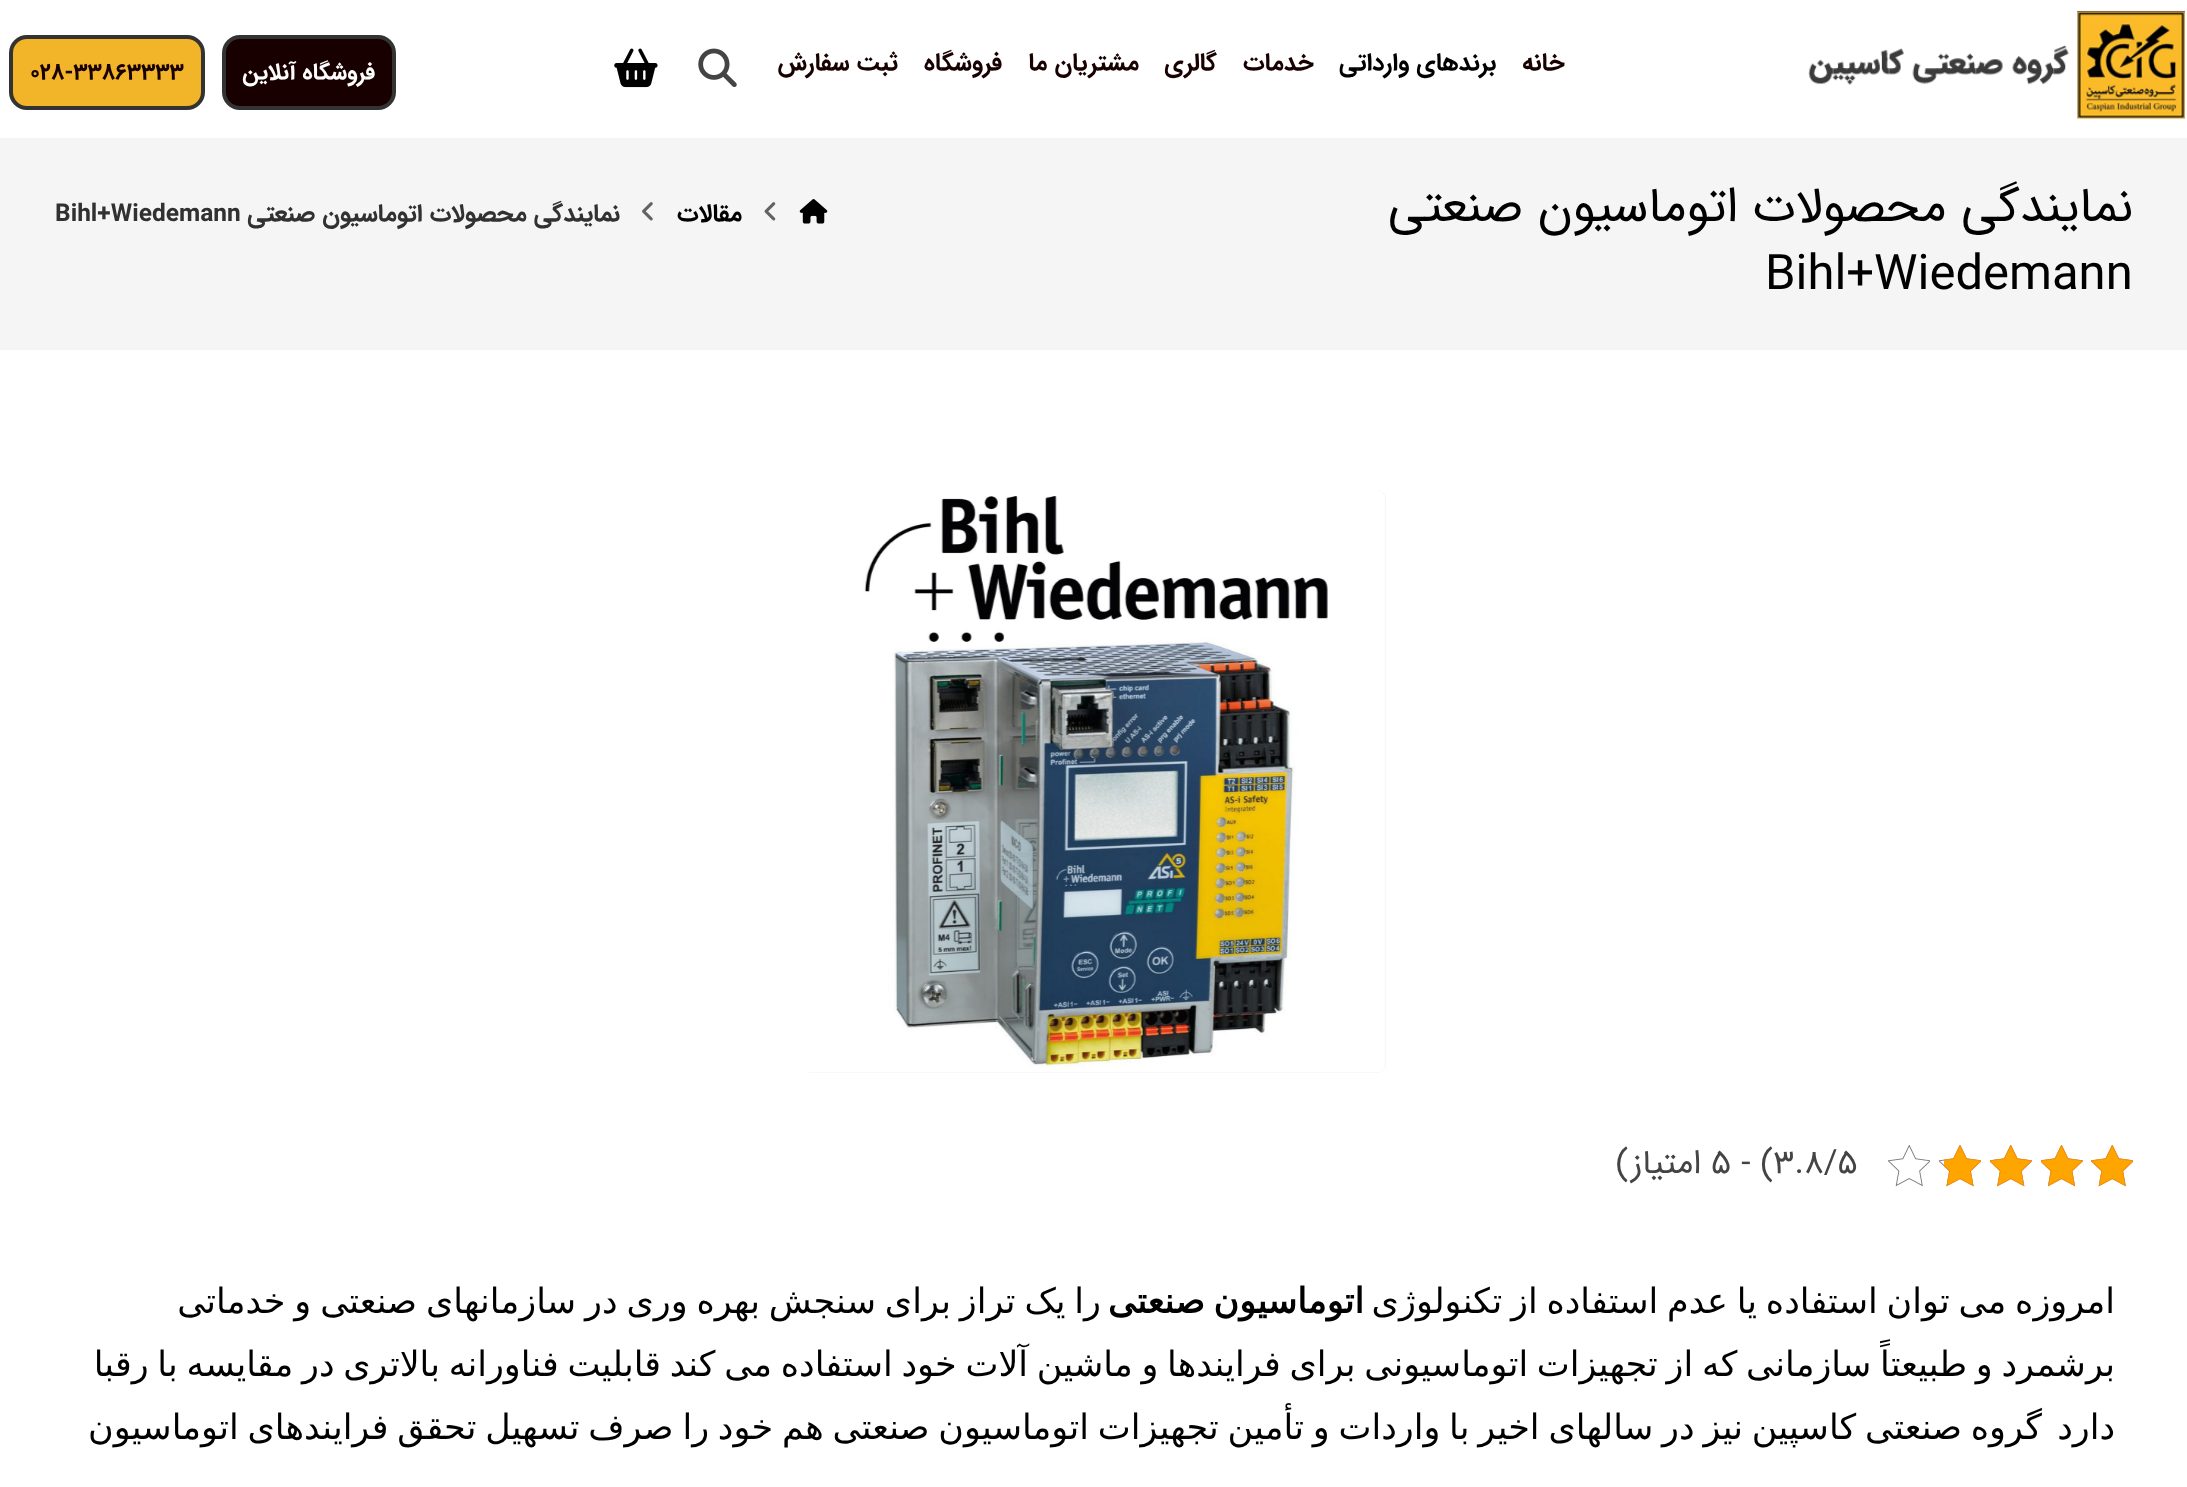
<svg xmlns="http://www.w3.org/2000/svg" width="2187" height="1487">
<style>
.a{font:bold 24.5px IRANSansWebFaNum;direction:rtl;fill:#180101}
.b{font:bold 24.5px IRANSansWebFaNum;direction:rtl;fill:#000}
.c{font:bold 22.75px IRANSansWebFaNum;direction:rtl;fill:#fff}
.d{font:bold 22.75px IRANSansWebFaNum;fill:#180101}
.e{font:49px IRANSansWebFaNum;direction:rtl;fill:#000}
.f{font:49px IRANSansWebFaNum;fill:#000}
.g{font:bold 24.5px IRANSansWebFaNum;direction:rtl;fill:#313131}
.h{font:bold 24.5px IRANSansWebFaNum;fill:#313131}
.i{font:33.5px IRANSansWebFaNum;fill:#444}
.j{font:33.5px IRANSansWebFaNum;direction:rtl;fill:#444}
.k{font:35px DejaVu Sans;direction:rtl;fill:#000}
.l{font:bold 35px DejaVu Sans;direction:rtl;fill:#000}
</style>
<rect width="100%" height="100%" fill="#fff"/>
<image href="1.png" x="1808" y="10" width="377" height="110"/>
<image href="2.png" x="698" y="48" width="39" height="39"/>
<image href="3.png" x="614" y="48" width="44" height="40"/>
<rect fill="#190000" stroke="#333" stroke-width="4" x="224" y="37" width="170" height="71" rx="16"/>
<rect fill="#f2b428" stroke="#333" stroke-width="4" x="11" y="37" width="192" height="71" rx="16"/>
<path fill="#f5f5f5" d="M0 138h2187v212H0z"/>
<image href="4.png" x="799" y="199" width="29" height="25"/>
<image href="5.png" x="764" y="202" width="12" height="19"/>
<image href="6.png" x="642" y="202" width="11" height="19"/>
<rect fill="#eee" x="803" y="490" width="583" height="583" rx="9"/>
<image href="7.png" x="803" y="490" width="583" height="583"/>
<image href="8.png" x="2091" y="1145" width="42" height="42"/>
<image href="9.png" x="2041" y="1145" width="42" height="42"/>
<image href="10.png" x="1990" y="1145" width="42" height="42"/>
<image href="11.png" x="1939" y="1145" width="42" height="42"/>
<image href="8.png" x="1888" y="1145" width="42" height="42"/>
<image href="12.png" x="2091" y="1145" width="42" height="42"/>
<image href="13.png" x="2041" y="1145" width="42" height="42"/>
<image href="14.png" x="1990" y="1145" width="42" height="42"/>
<image href="15.png" x="1944" y="1145" width="37" height="42"/>
<text class="a" x="1565" y="70">خانه</text>
<text class="b" x="1496" y="70">برندهای وارداتی</text>
<text class="a" x="1314" y="70">خدمات</text>
<text class="a" x="1217" y="70">گالری</text>
<text class="a" x="1139" y="70">مشتریان ما</text>
<text class="a" x="1002" y="70">فروشگاه</text>
<text class="a" x="898" y="70">ثبت سفارش</text>
<text class="c" x="375" y="79">فروشگاه آنلاین</text>
<text class="d" x="30" y="79">۰۲۸-۳۳۸۶۳۳۳۳</text>
<text class="e" x="2133" y="221">نمایندگی محصولات اتوماسیون صنعتی</text>
<text class="f" x="1765" y="289">Bihl+Wiedemann</text>
<text class="b" x="742" y="221">مقالات</text>
<text class="g" x="620" y="221">نمایندگی محصولات اتوماسیون صنعتی</text>
<text class="h" x="55" y="221">Bihl+Wiedemann</text>
<text class="i" x="1711" y="1173">۵ - (۳.۸/۵</text>
<text class="j" x="1701" y="1173">امتیاز)</text>
<text class="k" x="2115" y="1313" word-spacing="-2.4">امروزه می توان استفاده یا عدم استفاده از تکنولوژی</text>
<text class="l" x="1364" y="1313" word-spacing="-2.4">اتوماسیون صنعتی</text>
<text class="k" x="1101" y="1313" word-spacing="-2.25">را یک تراز برای سنجش بهره وری در سازمانهای صنعتی و خدماتی</text>
<text class="k" x="2115" y="1376" word-spacing="-2.4">برشمرد و طبیعتاً سازمانی که از تجهیزات اتوماسیونی برای فرایندها و ماشین آلات خود استفاده می کند قابلیت فناورانه بالاتری در مقایسه با رقبا</text>
<text class="k" x="2115" y="1439">دارد</text>
<text class="k" x="2042" y="1439" word-spacing="-2.3">گروه صنعتی کاسپین نیز در سالهای اخیر با واردات و تأمین تجهیزات اتوماسیون صنعتی هم خود را صرف تسهیل تحقق فرایندهای اتوماسیون</text>
</svg>
